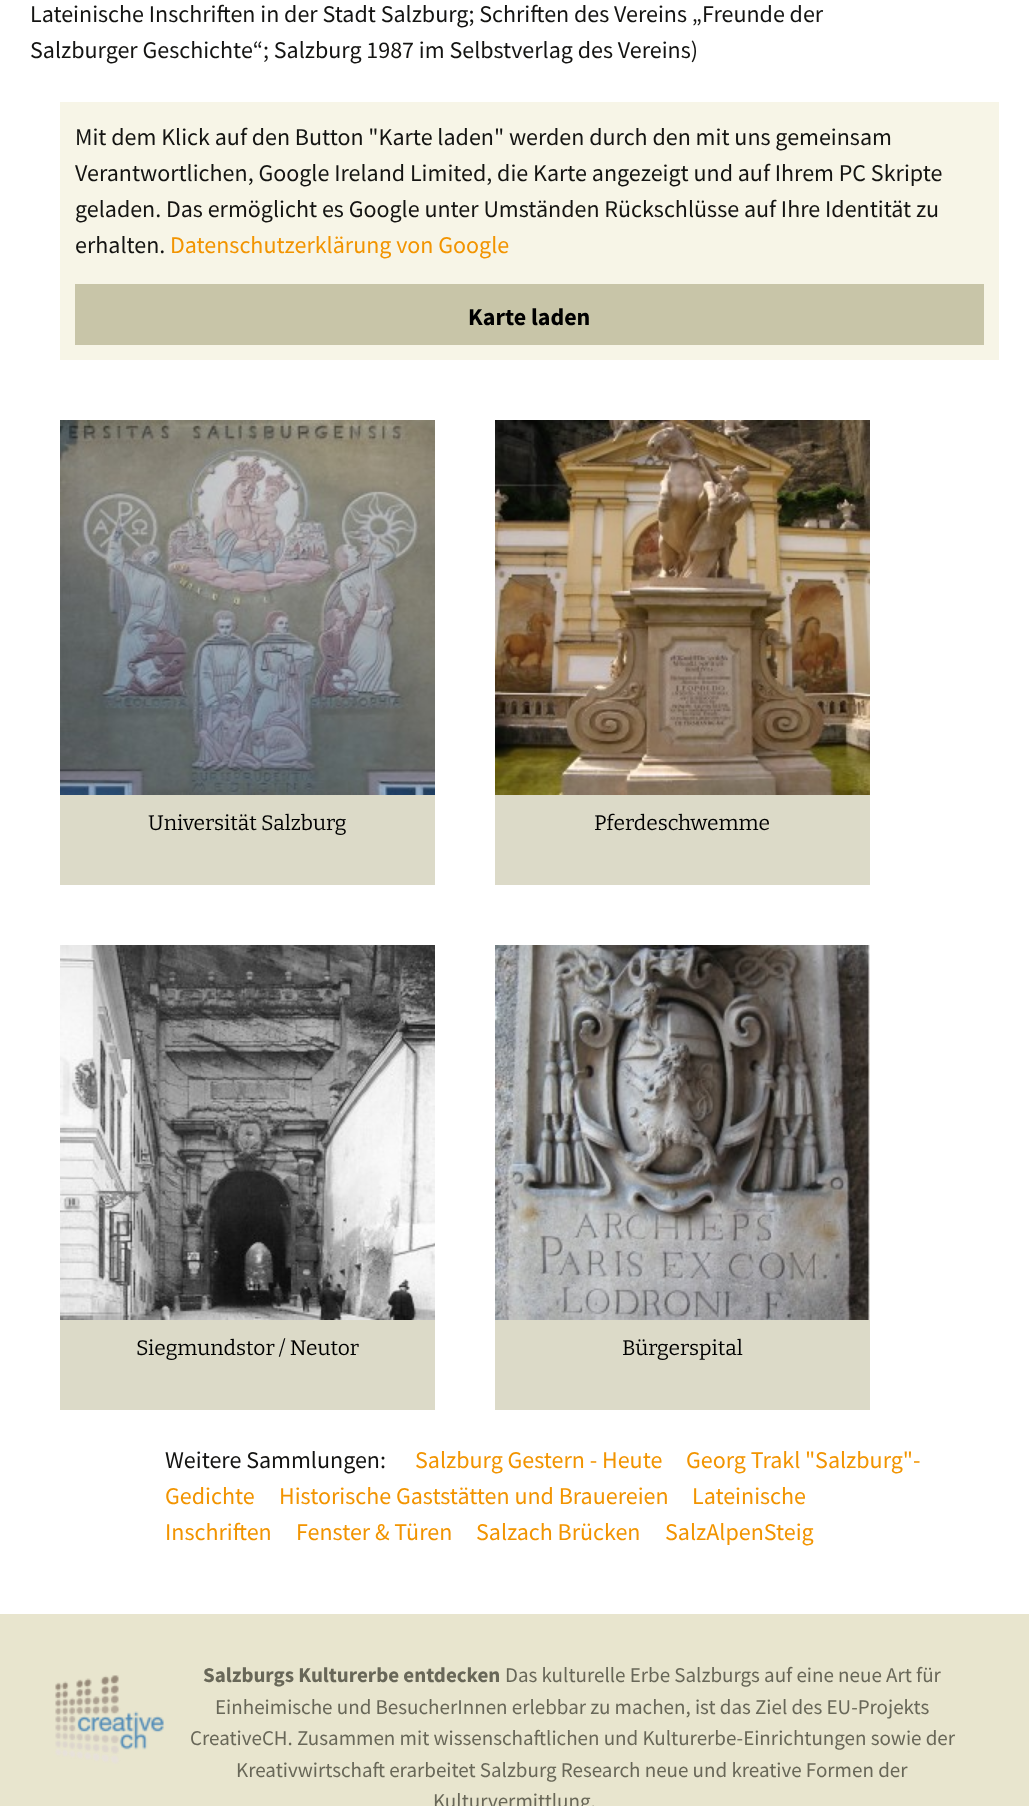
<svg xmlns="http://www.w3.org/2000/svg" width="1029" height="1806">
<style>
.a{font:24px Source Sans Pro;fill:#141412}
.b{font:24px Source Sans Pro;fill:#f29400}
.c{font:bold 24px Source Sans Pro;fill:#000}
.d{font:21px Bitter;fill:#000}
.e{font:bold 21px Source Sans Pro;fill:#686758}
.f{font:21px Source Sans Pro;fill:#686758}
</style>
<rect width="100%" height="100%" fill="#fff"/>
<path fill="#f7f5e7" d="M60 102h939v258H60z"/>
<path fill="#c8c5a8" d="M75 284h909v61H75z"/>
<path fill="#dcdac8" d="M60 795h375v90H60z"/>
<image href="1.png" x="60" y="420" width="375" height="375"/>
<path fill="#dcdac8" d="M495 795h375v90H495z"/>
<image href="2.png" x="495" y="420" width="375" height="375"/>
<path fill="#dcdac8" d="M60 1320h375v90H60z"/>
<image href="3.png" x="60" y="945" width="375" height="375"/>
<path fill="#dcdac8" d="M495 1320h375v90H495z"/>
<image href="4.png" x="495" y="945" width="375" height="375"/>
<path fill="#e8e5ce" d="M0 1614h1029v192H0z"/>
<image href="5.png" x="55" y="1675" width="109" height="89"/>
<text class="a" x="30" y="22">Lateinische Inschriften in der Stadt Salzburg; Schriften des Vereins „Freunde der</text>
<text class="a" x="30" y="58">Salzburger Geschichte“; Salzburg 1987 im Selbstverlag des Vereins)</text>
<text class="a" x="75" y="145">Mit dem Klick auf den Button "Karte laden" werden durch den mit uns gemeinsam</text>
<text class="a" x="75" y="181">Verantwortlichen, Google Ireland Limited, die Karte angezeigt und auf Ihrem PC Skripte</text>
<text class="a" x="75" y="217">geladen. Das ermöglicht es Google unter Umständen Rückschlüsse auf Ihre Identität zu</text>
<text class="a" x="75" y="253">erhalten.</text>
<text class="b" x="170" y="253">Datenschutzerklärung von Google</text>
<text class="c" x="468" y="325">Karte laden</text>
<text class="d" x="148" y="830">Universität Salzburg</text>
<text class="d" x="594" y="830">Pferdeschwemme</text>
<text class="d" x="136" y="1355">Siegmundstor / Neutor</text>
<text class="d" x="622" y="1355">Bürgerspital</text>
<text class="a" x="165" y="1468">Weitere Sammlungen:</text>
<text class="b" x="415" y="1468">Salzburg Gestern - Heute</text>
<text class="b" x="686" y="1468">Georg Trakl "Salzburg"-</text>
<text class="b" x="165" y="1504">Gedichte</text>
<text class="b" x="279" y="1504">Historische Gaststätten und Brauereien</text>
<text class="b" x="692" y="1504">Lateinische</text>
<text class="b" x="165" y="1540">Inschriften</text>
<text class="b" x="296" y="1540">Fenster &amp; Türen</text>
<text class="b" x="476" y="1540">Salzach Brücken</text>
<text class="b" x="665" y="1540">SalzAlpenSteig</text>
<text class="e" x="203" y="1682">Salzburgs Kulturerbe entdecken</text>
<text class="f" x="505" y="1682">Das kulturelle Erbe Salzburgs auf eine neue Art für</text>
<text class="f" x="215" y="1714">Einheimische und BesucherInnen erlebbar zu machen, ist das Ziel des EU-Projekts</text>
<text class="f" x="190" y="1745">CreativeCH. Zusammen mit wissenschaftlichen und Kulturerbe-Einrichtungen sowie der</text>
<text class="f" x="236" y="1777">Kreativwirtschaft erarbeitet Salzburg Research neue und kreative Formen der</text>
<text class="f" x="433" y="1808">Kulturvermittlung.</text>
</svg>
